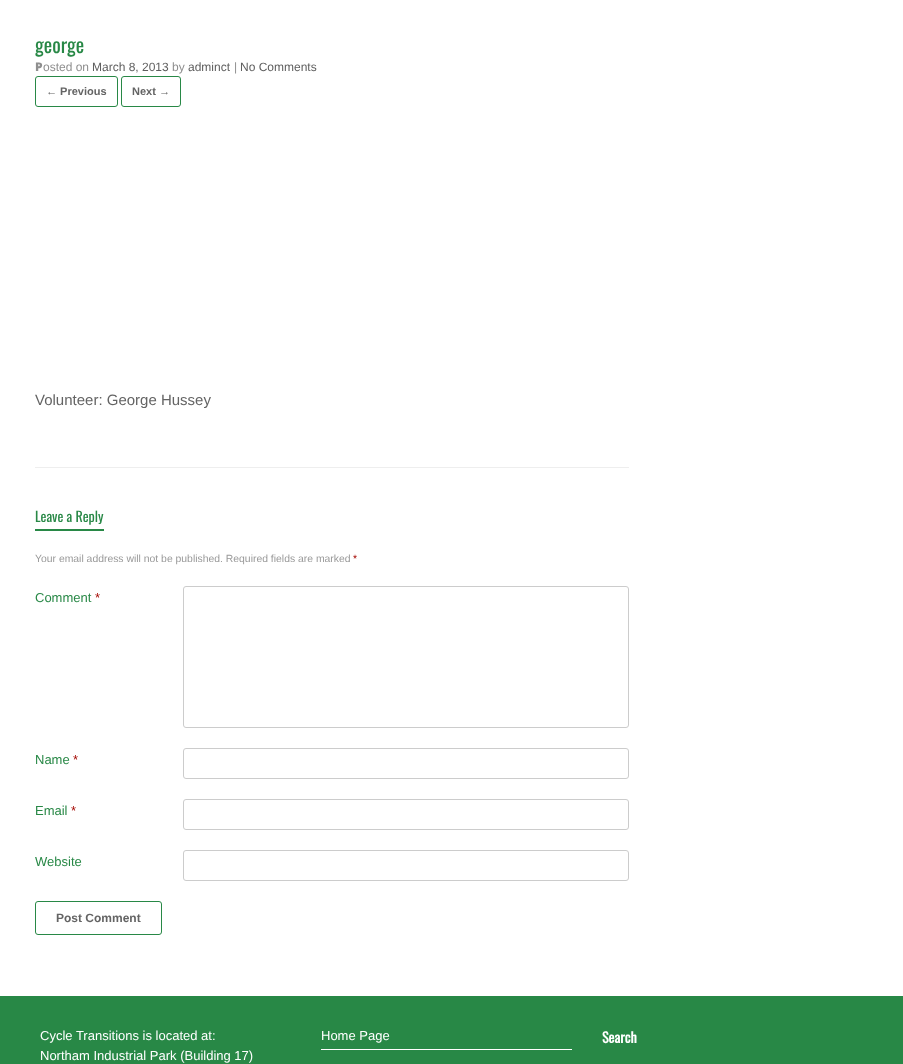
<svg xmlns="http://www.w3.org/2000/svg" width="903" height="1064">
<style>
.a{font:20px Oswald;fill:#288846}
.b{font:900 12px Noto Sans;fill:#8f8f8f}
.c{font:12px Liberation Sans;fill:#8f8f8f}
.d{font:12px Liberation Sans;fill:#5e5e5e}
.e{font:bold 11px Liberation Sans;fill:#646464}
.f{font:15px Liberation Sans;fill:#646464}
.g{font:14px Oswald;fill:#288846}
.h{font:10.4px Liberation Sans;fill:#999}
.i{font:10.4px Liberation Sans;fill:#a40802}
.j{font:13px Liberation Sans;fill:#288846}
.k{font:13px Liberation Sans;fill:#a40802}
.l{font:bold 12px Liberation Sans;fill:#646464}
.m{font:13px Liberation Sans;fill:#fff}
.n{font:bold 14px Oswald;fill:#fff}
</style>
<rect width="100%" height="100%" fill="#fff"/>
<path fill="#eee" d="M35 467h594v1H35z"/>
<rect fill="none" stroke="#288846" x="35.5" y="76.5" width="82" height="30" rx="2.5"/>
<rect fill="none" stroke="#288846" x="121.5" y="76.5" width="59" height="30" rx="2.5"/>
<path fill="#288846" d="M35 529h69v2H35z"/>
<rect fill="none" stroke="#ccc" x="183.5" y="586.5" width="445" height="141" rx="2.5"/>
<rect fill="none" stroke="#ccc" x="183.5" y="748.5" width="445" height="30" rx="2.5"/>
<rect fill="none" stroke="#ccc" x="183.5" y="799.5" width="445" height="30" rx="2.5"/>
<rect fill="none" stroke="#ccc" x="183.5" y="850.5" width="445" height="30" rx="2.5"/>
<rect fill="none" stroke="#288846" x="35.5" y="901.5" width="126" height="33" rx="2.5"/>
<path fill="#288846" d="M0 996h903v68H0z"/>
<path fill="#fff" d="M321 1049h251v1H321z"/>
<text class="a" x="35" y="53">george</text>
<text class="b" x="35" y="71">P</text>
<text class="c" x="43" y="71">osted on</text>
<text class="d" x="92" y="71">March 8, 2013</text>
<text class="c" x="172" y="71">by</text>
<text class="d" x="188" y="71">adminct</text>
<text class="c" x="234" y="71">|</text>
<text class="d" x="240" y="71">No Comments</text>
<text class="e" x="46" y="95">← Previous</text>
<text class="e" x="132" y="95">Next →</text>
<text class="f" x="35" y="405">Volunteer: George Hussey</text>
<text class="g" x="35" y="522">Leave a Reply</text>
<text class="h" x="35" y="562">Your email address will not be published. Required fields are marked</text>
<text class="i" x="353" y="562">*</text>
<text class="j" x="35" y="602">Comment</text>
<text class="k" x="95" y="602">*</text>
<text class="j" x="35" y="764">Name</text>
<text class="k" x="73" y="764">*</text>
<text class="j" x="35" y="815">Email</text>
<text class="k" x="71" y="815">*</text>
<text class="j" x="35" y="866">Website</text>
<text class="l" x="56" y="922">Post Comment</text>
<text class="m" x="40" y="1040">Cycle Transitions is located at:</text>
<text class="m" x="40" y="1060">Northam Industrial Park (Building 17)</text>
<text class="m" x="321" y="1040">Home Page</text>
<text class="n" x="602" y="1043">Search</text>
</svg>
